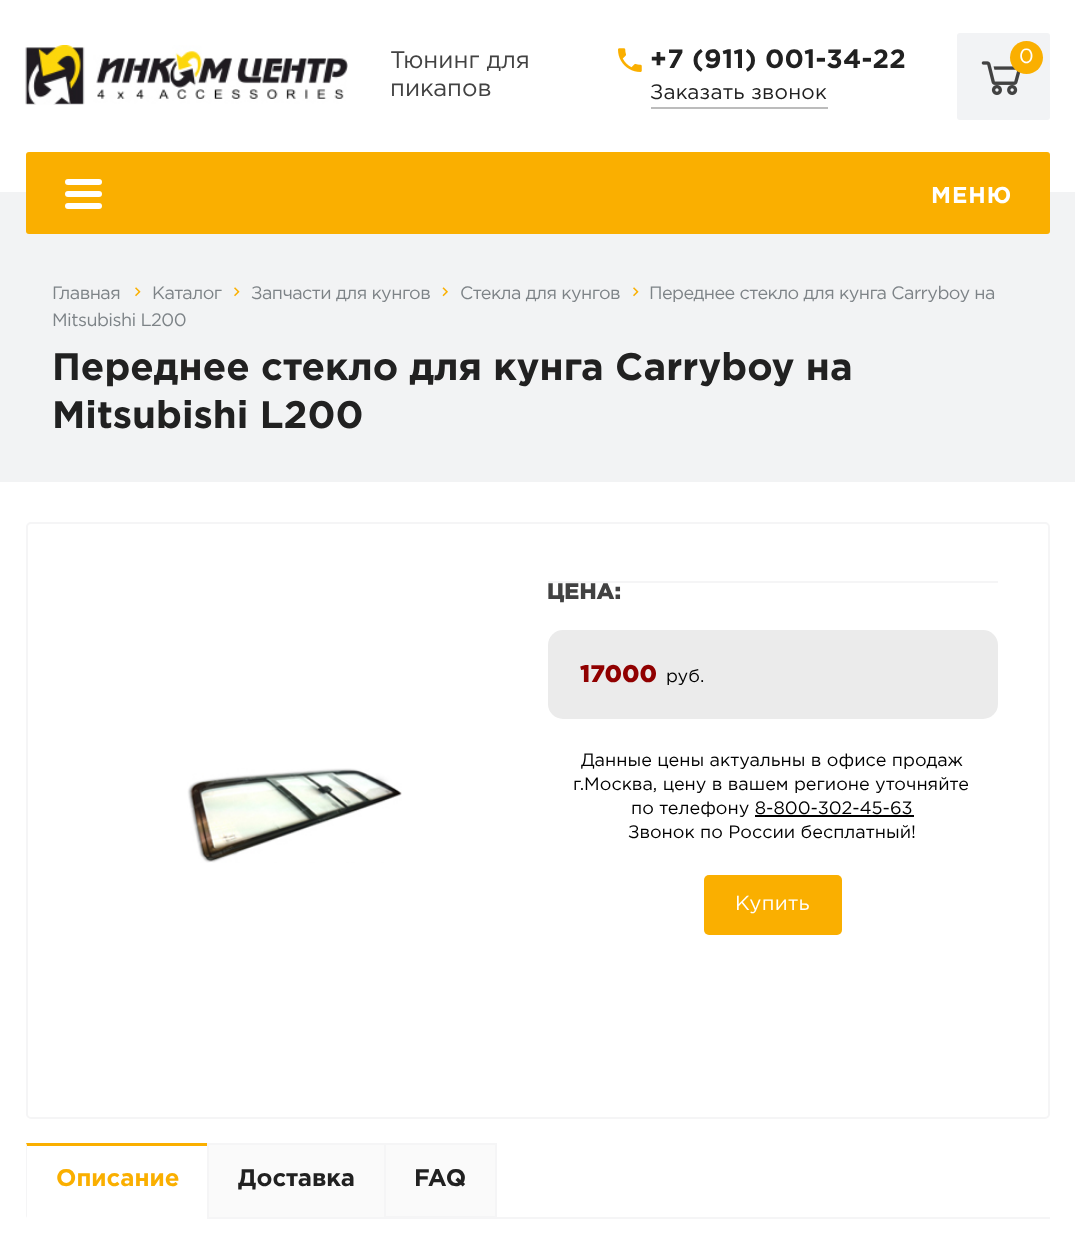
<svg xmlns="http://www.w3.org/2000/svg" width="1075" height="1236">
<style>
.a{font:24px Gotham;fill:#424242}
.b{font:bold 26.5px Gotham;letter-spacing:0.25px;fill:#212121}
.c{font:20.75px Gotham;letter-spacing:0.25px;fill:#212121}
.d{font:20.5px Gotham;fill:#fff}
.e{font:bold 23px Gotham;letter-spacing:1px;fill:#fff}
.f{font:18px Gotham;letter-spacing:-0.55px;fill:#7d8387}
.g{font:bold 38.4px Gotham;fill:#212121}
.h{font:900 22.5px Gotham;fill:#424242}
.i{font:900 24px Gotham;fill:#900000}
.j{font:18px Gotham;fill:#000}
.k{font:20.5px Gotham;letter-spacing:0.25px;fill:#fff}
.l{font:bold 24px Gotham;fill:#faaf00}
.m{font:bold 24px Gotham;fill:#212121}
</style>
<rect width="100%" height="100%" fill="#fff"/>
<image href="1.png" x="25" y="45" width="323" height="60"/>
<image href="2.png" x="618" y="48" width="24" height="24"/>
<path fill="#bcbcbc" d="M651 107h177v2H651z"/>
<rect fill="#f2f3f5" x="957" y="33" width="93" height="87" rx="3"/>
<image href="3.png" x="981" y="61" width="40" height="35"/>
<circle fill="#faaf00" cx="1026.5" cy="57.5" r="16.5"/>
<path fill="#f2f3f4" d="M0 192h1075v290H0z"/>
<rect fill="#faaf00" x="26" y="152" width="1024" height="82" rx="3"/>
<rect fill="#fff" x="65" y="179" width="37" height="6" rx="3"/>
<rect fill="#fff" x="65" y="191" width="37" height="6" rx="3"/>
<rect fill="#fff" x="65" y="203" width="37" height="6" rx="3"/>
<image href="4.png" x="135" y="287" width="6" height="10"/>
<image href="4.png" x="234" y="287" width="6" height="10"/>
<image href="5.png" x="442" y="287" width="6" height="10"/>
<image href="4.png" x="633" y="287" width="6" height="10"/>
<rect fill="none" stroke="#f5f5f6" stroke-width="2" x="27" y="523" width="1022" height="595" rx="4"/>
<image href="6.png" x="187" y="768" width="215" height="95"/>
<path fill="#f5f5f6" d="M548 581h450v2H548z"/>
<rect fill="#ebebeb" x="548" y="630" width="450" height="89" rx="15"/>
<path fill="#000" d="M755 815h159v2H755z"/>
<rect fill="#faaf00" x="704" y="875" width="138" height="60" rx="5"/>
<path fill="#f5f5f6" d="M207 1217h843v2H207z"/>
<path fill="#faaf00" d="M26 1143h181v3h-180z"/>
<path fill="#f5f5f6" d="M26 1218v-75l1 3v70z"/>
<path fill="#fafafa" d="M209 1145h175v72H209z"/>
<path fill="#f5f5f6" d="M207 1143h177v2H207z"/>
<path fill="#f5f5f6" d="M207 1143h2v75H207z"/>
<path fill="#fafafa" stroke="#f5f5f6" stroke-width="2" d="M385 1144h111v73H385z"/>
<text class="a" x="390" y="68">Тюнинг для</text>
<text class="a" x="390" y="96">пикапов</text>
<text class="b" x="650" y="68">+7 (911) 001-34-22</text>
<text class="c" x="650" y="99">Заказать звонок</text>
<text class="d" x="1019" y="63">0</text>
<text class="e" x="931" y="203">МЕНЮ</text>
<text class="f" x="52" y="299">Главная</text>
<text class="f" x="152" y="299">Каталог</text>
<text class="f" x="251" y="299">Запчасти для кунгов</text>
<text class="f" x="460" y="299">Стекла для кунгов</text>
<text class="f" x="649" y="299">Переднее стекло для кунга Carryboy на</text>
<text class="f" x="52" y="326">Mitsubishi L200</text>
<text class="g" x="52" y="380" word-spacing="-0.25">Переднее стекло для кунга Carryboy на</text>
<text class="g" x="52" y="428">Mitsubishi L200</text>
<text class="h" x="547" y="599">ЦЕНА:</text>
<text class="i" x="580" y="682">17000</text>
<text class="j" x="666" y="682">руб.</text>
<text class="j" x="581" y="766">Данные цены актуальны в офисе продаж</text>
<text class="j" x="573" y="790">г.Москва, цену в вашем регионе уточняйте</text>
<text class="j" x="631" y="814">по телефону 8-800-302-45-63</text>
<text class="j" x="628" y="838">Звонок по России бесплатный!</text>
<text class="k" x="735" y="910">Купить</text>
<text class="l" x="56" y="1186">Описание</text>
<text class="m" x="238" y="1186">Доставка</text>
<text class="m" x="414" y="1186">FAQ</text>
</svg>
